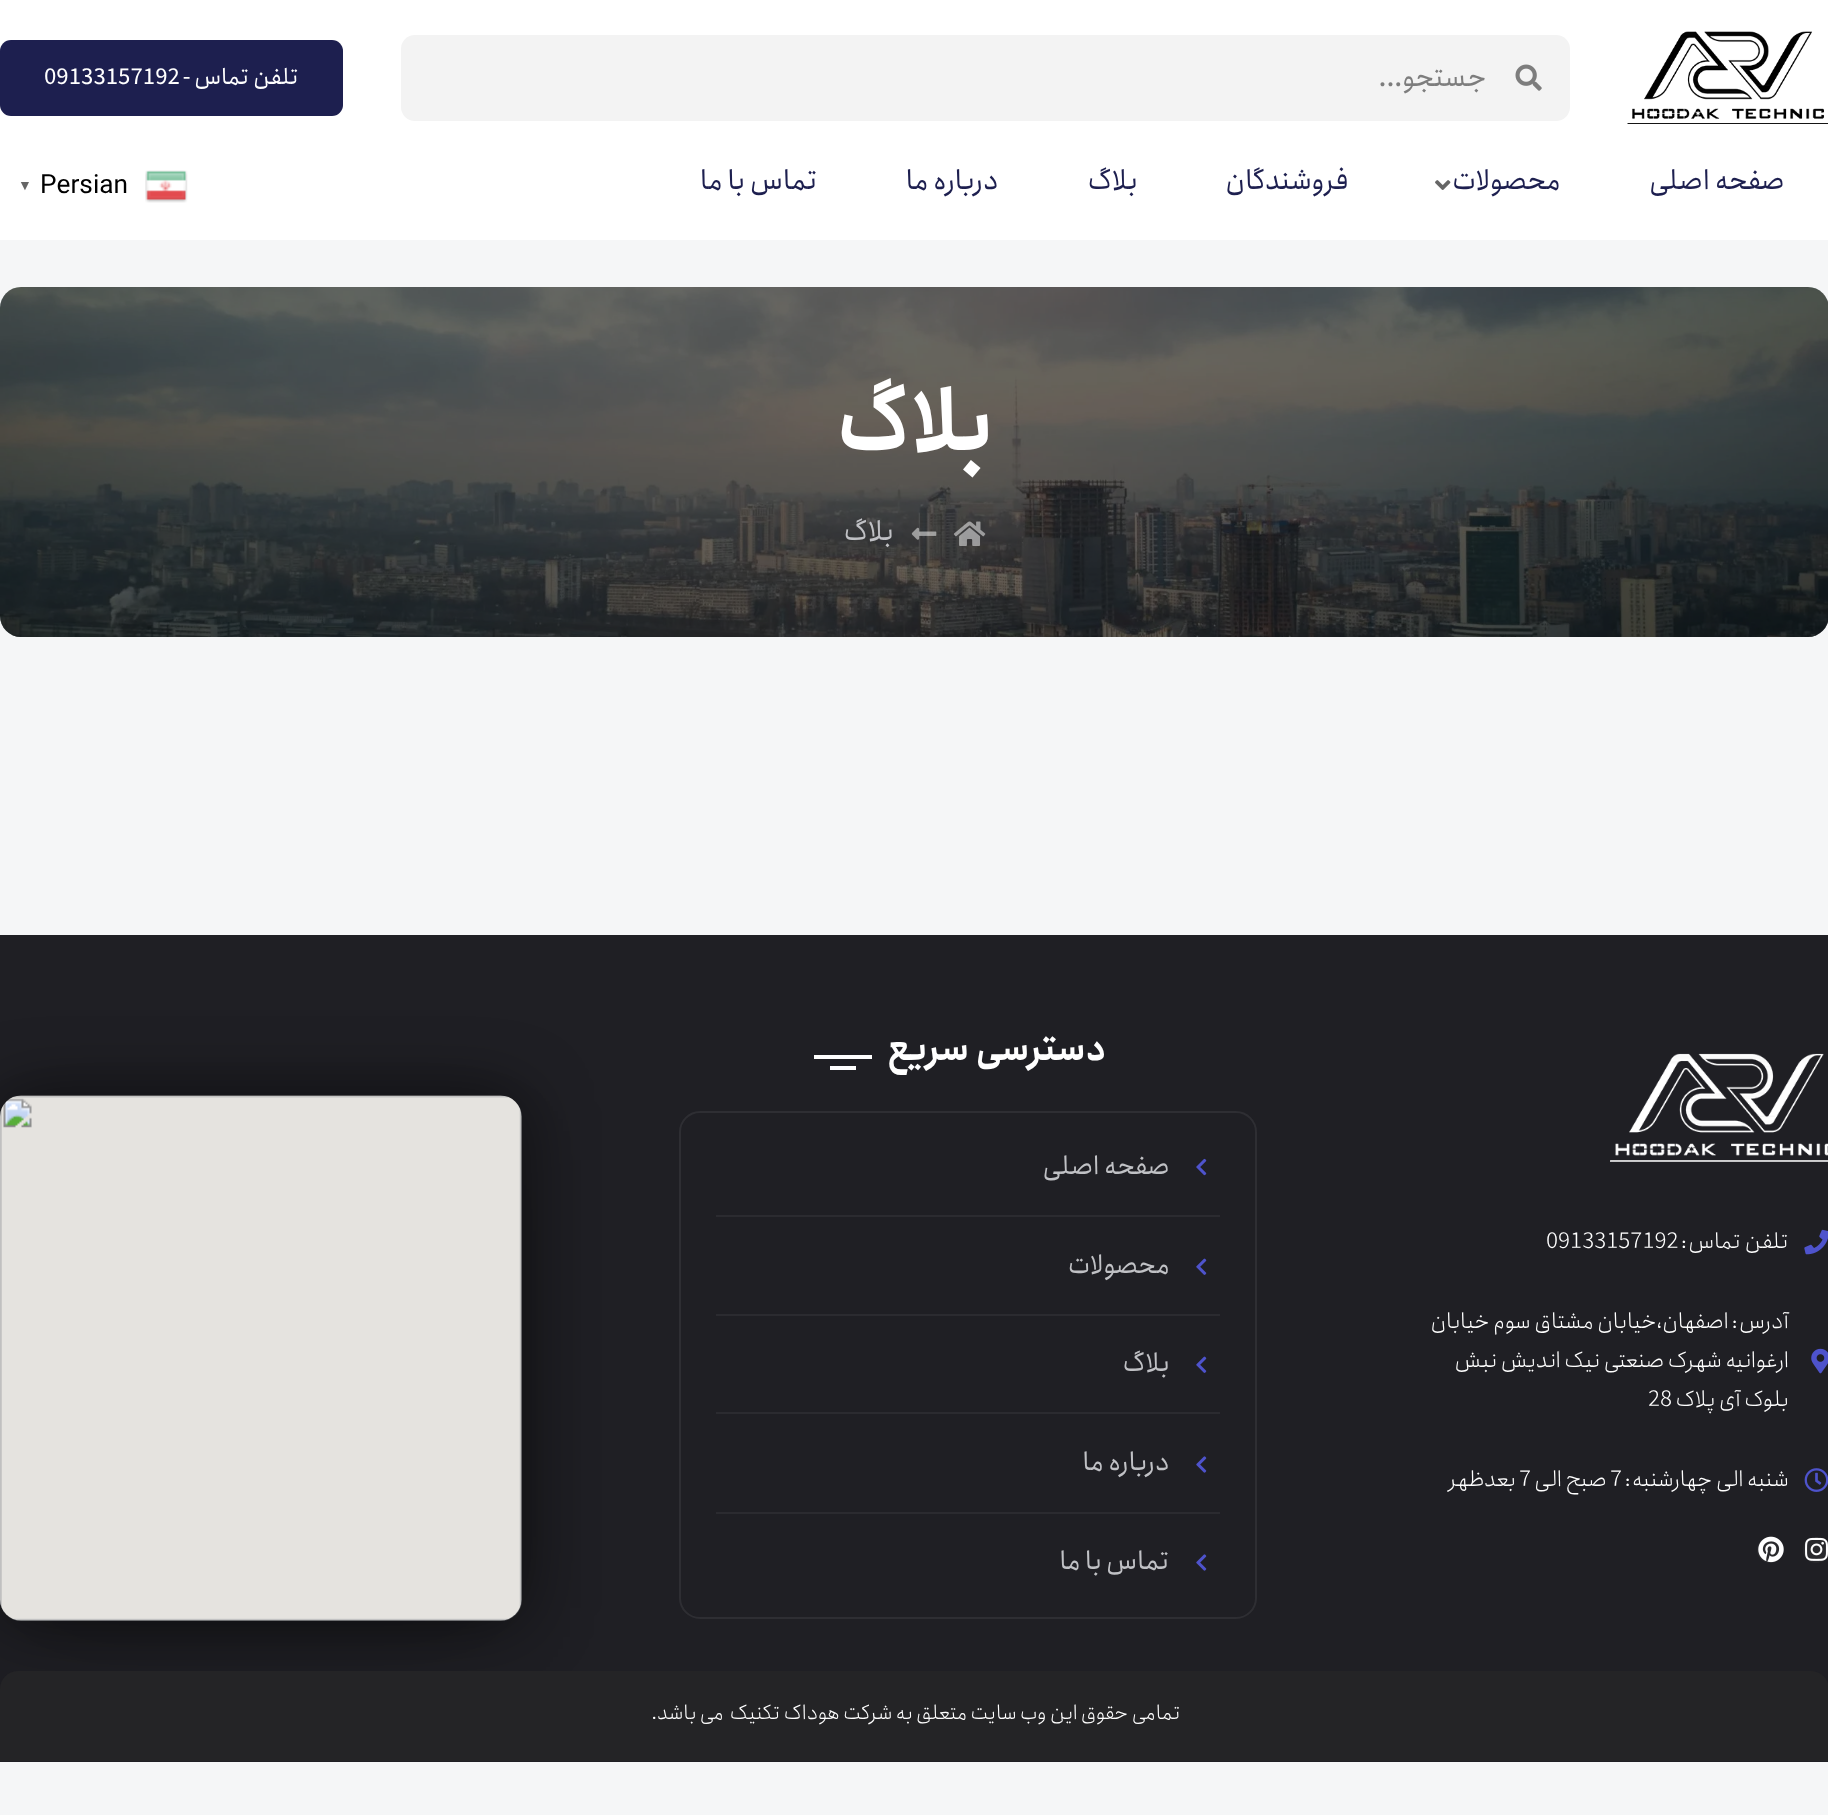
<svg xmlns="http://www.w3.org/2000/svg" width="1828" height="1815">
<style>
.a{font:28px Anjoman;direction:rtl;fill:#7d7d7d}
.b{font:22.75px Anjoman;direction:rtl;fill:#fff}
.c{font:22.75px Anjoman;fill:#fff}
.d{font:28px Anjoman;direction:rtl;fill:#1d1f4f}
.e{font:26.25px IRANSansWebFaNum;fill:#000}
.f{font:bold 14px Liberation Serif;fill:#666}
.g{font:bold 84px Anjoman;direction:rtl;fill:#fff}
.h{font:28px Anjoman;direction:rtl;fill:#c0c1c5}
.i{font:300 22.75px Anjoman;direction:rtl;fill:#fff}
.j{font:300 22.75px Anjoman;fill:#fff}
.k{font:bold 35px Anjoman;direction:rtl;fill:#fff}
.l{font:26.25px Anjoman;direction:rtl;fill:#c0c1c5}
.m{font:300 21px Anjoman;direction:rtl;fill:#fff}
</style>
<rect width="100%" height="100%" fill="#f5f6f7"/>
<path fill="#fff" d="M0 0h1828v240H0z"/>
<image href="1.png" x="1627" y="31" width="201" height="93"/>
<rect fill="#f3f3f3" x="401" y="35" width="1169" height="86" rx="14"/>
<image href="2.png" x="1515" y="64" width="27" height="27"/>
<rect fill="#1d1f4f" y="40" width="343" height="76" rx="11"/>
<image href="3.png" x="1435" y="180" width="16" height="10"/>
<image href="4.png" x="145" y="170" width="43" height="33"/>
<image href="5.png" x="0" y="287" width="1828" height="350"/>
<rect fill="#00000099" y="287" width="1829" height="350" rx="21"/>
<image href="6.png" x="953" y="521" width="33" height="25"/>
<image href="7.png" x="911" y="527" width="26" height="13"/>
<path fill="#1f1f24" d="M0 935h1828v827H0z"/>
<image href="8.png" x="1610" y="1053" width="218" height="109"/>
<image href="9.png" x="1804" y="1229" width="24" height="26"/>
<image href="10.png" x="1811" y="1348" width="17" height="26"/>
<image href="11.png" x="1804" y="1468" width="24" height="24"/>
<circle fill="#29292d" cx="1816" cy="1550" r="13"/>
<image href="12.png" x="1805" y="1537" width="23" height="24"/>
<circle fill="#29292d" cx="1770" cy="1550" r="13"/>
<image href="13.png" x="1758" y="1536" width="26" height="27"/>
<path fill="#fff" d="M814 1055h58v4H814z"/>
<path fill="#fff" d="M830 1066h26v4H830z"/>
<rect fill="none" stroke="#b1b1b11c" stroke-width="2" x="680" y="1112" width="576" height="506" rx="20"/>
<image href="14.png" x="1196" y="1158" width="11" height="18"/>
<path fill="#2b2b30" d="M716 1215h504v2H716z"/>
<image href="15.png" x="1196" y="1258" width="11" height="17"/>
<path fill="#2b2b30" d="M716 1314h504v2H716z"/>
<image href="15.png" x="1196" y="1356" width="11" height="17"/>
<path fill="#2b2b30" d="M716 1412h504v2H716z"/>
<image href="16.png" x="1196" y="1456" width="11" height="17"/>
<path fill="#2b2b30" d="M716 1512h504v2H716z"/>
<image href="16.png" x="1196" y="1554" width="11" height="17"/>
<rect fill="#00000080" filter="blur(35px)" y="1096" width="522" height="525" rx="21"/>
<rect fill="#6b707480" y="1096" width="522" height="525" rx="21"/>
<path fill="#00000061" filter="blur(44px)" d="M39 1160h444v448H39z"/>
<image href="17.png" x="0" y="1095" width="522" height="526"/>
<path fill="#242426" d="M18 1671h1793c10 0 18 8 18 18v72h-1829v-72c0-10 8-18 18-18z"/>
<text class="a" x="1487" y="86">جستجو...</text>
<text class="b" x="299" y="84">تلفن تماس -</text>
<text class="c" x="44" y="84">09133157192</text>
<text class="d" x="1785" y="189">صفحه اصلی</text>
<text class="d" x="1561" y="189">محصولات</text>
<text class="d" x="1349" y="189">فروشندگان</text>
<text class="d" x="1138" y="189">بلاگ</text>
<text class="d" x="999" y="189">درباره ما</text>
<text class="d" x="818" y="189">تماس با ما</text>
<text class="e" x="40" y="193">Persian</text>
<text class="f" x="18" y="190">▼</text>
<text class="g" x="995" y="450">بلاگ</text>
<text class="h" x="894" y="540">بلاگ</text>
<text class="i" x="1789" y="1248">تلفن تماس:</text>
<text class="j" x="1546" y="1248">09133157192</text>
<text class="i" x="1789" y="1328">آدرس: اصفهان،خیابان مشتاق سوم خیابان</text>
<text class="i" x="1789" y="1367">ارغوانیه شهرک صنعتی نیک اندیش نبش</text>
<text class="i" x="1789" y="1406">بلوک آی پلاک</text>
<text class="j" x="1648" y="1406">28</text>
<text class="i" x="1789" y="1486">شنبه الی چهارشنبه:</text>
<text class="j" x="1610" y="1486">7</text>
<text class="i" x="1607" y="1486">صبح الی</text>
<text class="j" x="1519" y="1486">7</text>
<text class="i" x="1516" y="1486">بعدظهر</text>
<text class="k" x="1107" y="1060">دسترسی سریع</text>
<text class="l" x="1170" y="1174">صفحه اصلی</text>
<text class="l" x="1170" y="1273">محصولات</text>
<text class="l" x="1170" y="1371">بلاگ</text>
<text class="l" x="1170" y="1470">درباره ما</text>
<text class="l" x="1170" y="1569">تماس با ما</text>
<text class="m" xml:space="preserve" x="1181" y="1719">تمامی حقوق این وب سایت متعلق به شرکت هوداک تکنیک  می باشد.</text>
</svg>
